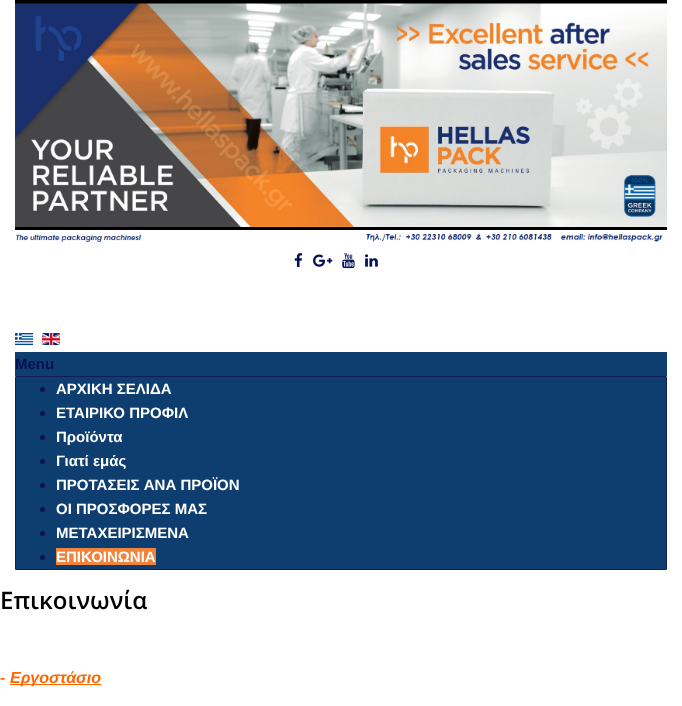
<svg xmlns="http://www.w3.org/2000/svg" width="682" height="706">
<style>
.a{font:bold 15px Arimo;fill:#051154}
.b{font:bold 15px Arimo;fill:#fff}
.c{font:600 24px Open Sans;fill:#000}
.d{font:italic bold 16px Arimo;fill:#f60}
</style>
<rect width="100%" height="100%" fill="#fff"/>
<image href="1.png" x="15" y="0" width="652" height="242"/>
<image href="2.png" x="294" y="253" width="9" height="15"/>
<image href="3.png" x="313" y="254" width="20" height="13"/>
<image href="4.png" x="342" y="253" width="13" height="16"/>
<image href="5.png" x="365" y="254" width="13" height="13"/>
<image href="6.png" x="15" y="333" width="18" height="12"/>
<image href="7.png" x="42" y="333" width="18" height="12"/>
<path fill="#0e3d70" d="M15 352h652v24H15z"/>
<rect fill="#0e3d70" stroke="#151b54" x="15.5" y="376.5" width="651" height="193" rx="0.5"/>
<circle fill="#051154" cx="42.5" cy="389.5" r="2.5"/>
<circle fill="#051154" cx="42.5" cy="413.5" r="2.5"/>
<circle fill="#051154" cx="42.5" cy="437.5" r="2.5"/>
<circle fill="#051154" cx="42.5" cy="461.5" r="2.5"/>
<circle fill="#051154" cx="42.5" cy="485.5" r="2.5"/>
<circle fill="#051154" cx="42.5" cy="509.5" r="2.5"/>
<circle fill="#051154" cx="42.5" cy="533.5" r="2.5"/>
<circle fill="#051154" cx="42.5" cy="557.5" r="2.5"/>
<path fill="#f0843c" d="M56 548h100v17H56z"/>
<path fill="#f60" d="M10 684h91v1H10z"/>
<text class="a" x="15" y="369">Menu</text>
<text class="b" x="56" y="394">ΑΡΧΙΚΗ ΣΕΛΙΔΑ</text>
<text class="b" x="56" y="418">ΕΤΑΙΡΙΚΟ ΠΡΟΦΙΛ</text>
<text class="b" x="56" y="442">Προϊόντα</text>
<text class="b" x="56" y="466">Γιατί εμάς</text>
<text class="b" x="56" y="490">ΠΡΟΤΑΣΕΙΣ ΑΝΑ ΠΡΟΪΟΝ</text>
<text class="b" x="56" y="514">ΟΙ ΠΡΟΣΦΟΡΕΣ ΜΑΣ</text>
<text class="b" x="56" y="538">ΜΕΤΑΧΕΙΡΙΣΜΕΝΑ</text>
<text class="b" x="56" y="562">ΕΠΙΚΟΙΝΩΝΙΑ</text>
<text class="c" x="0" y="609">Επικοινωνία</text>
<text class="d" x="0" y="683">-</text>
<text class="d" x="10" y="683">Εργοστάσιο</text>
</svg>
